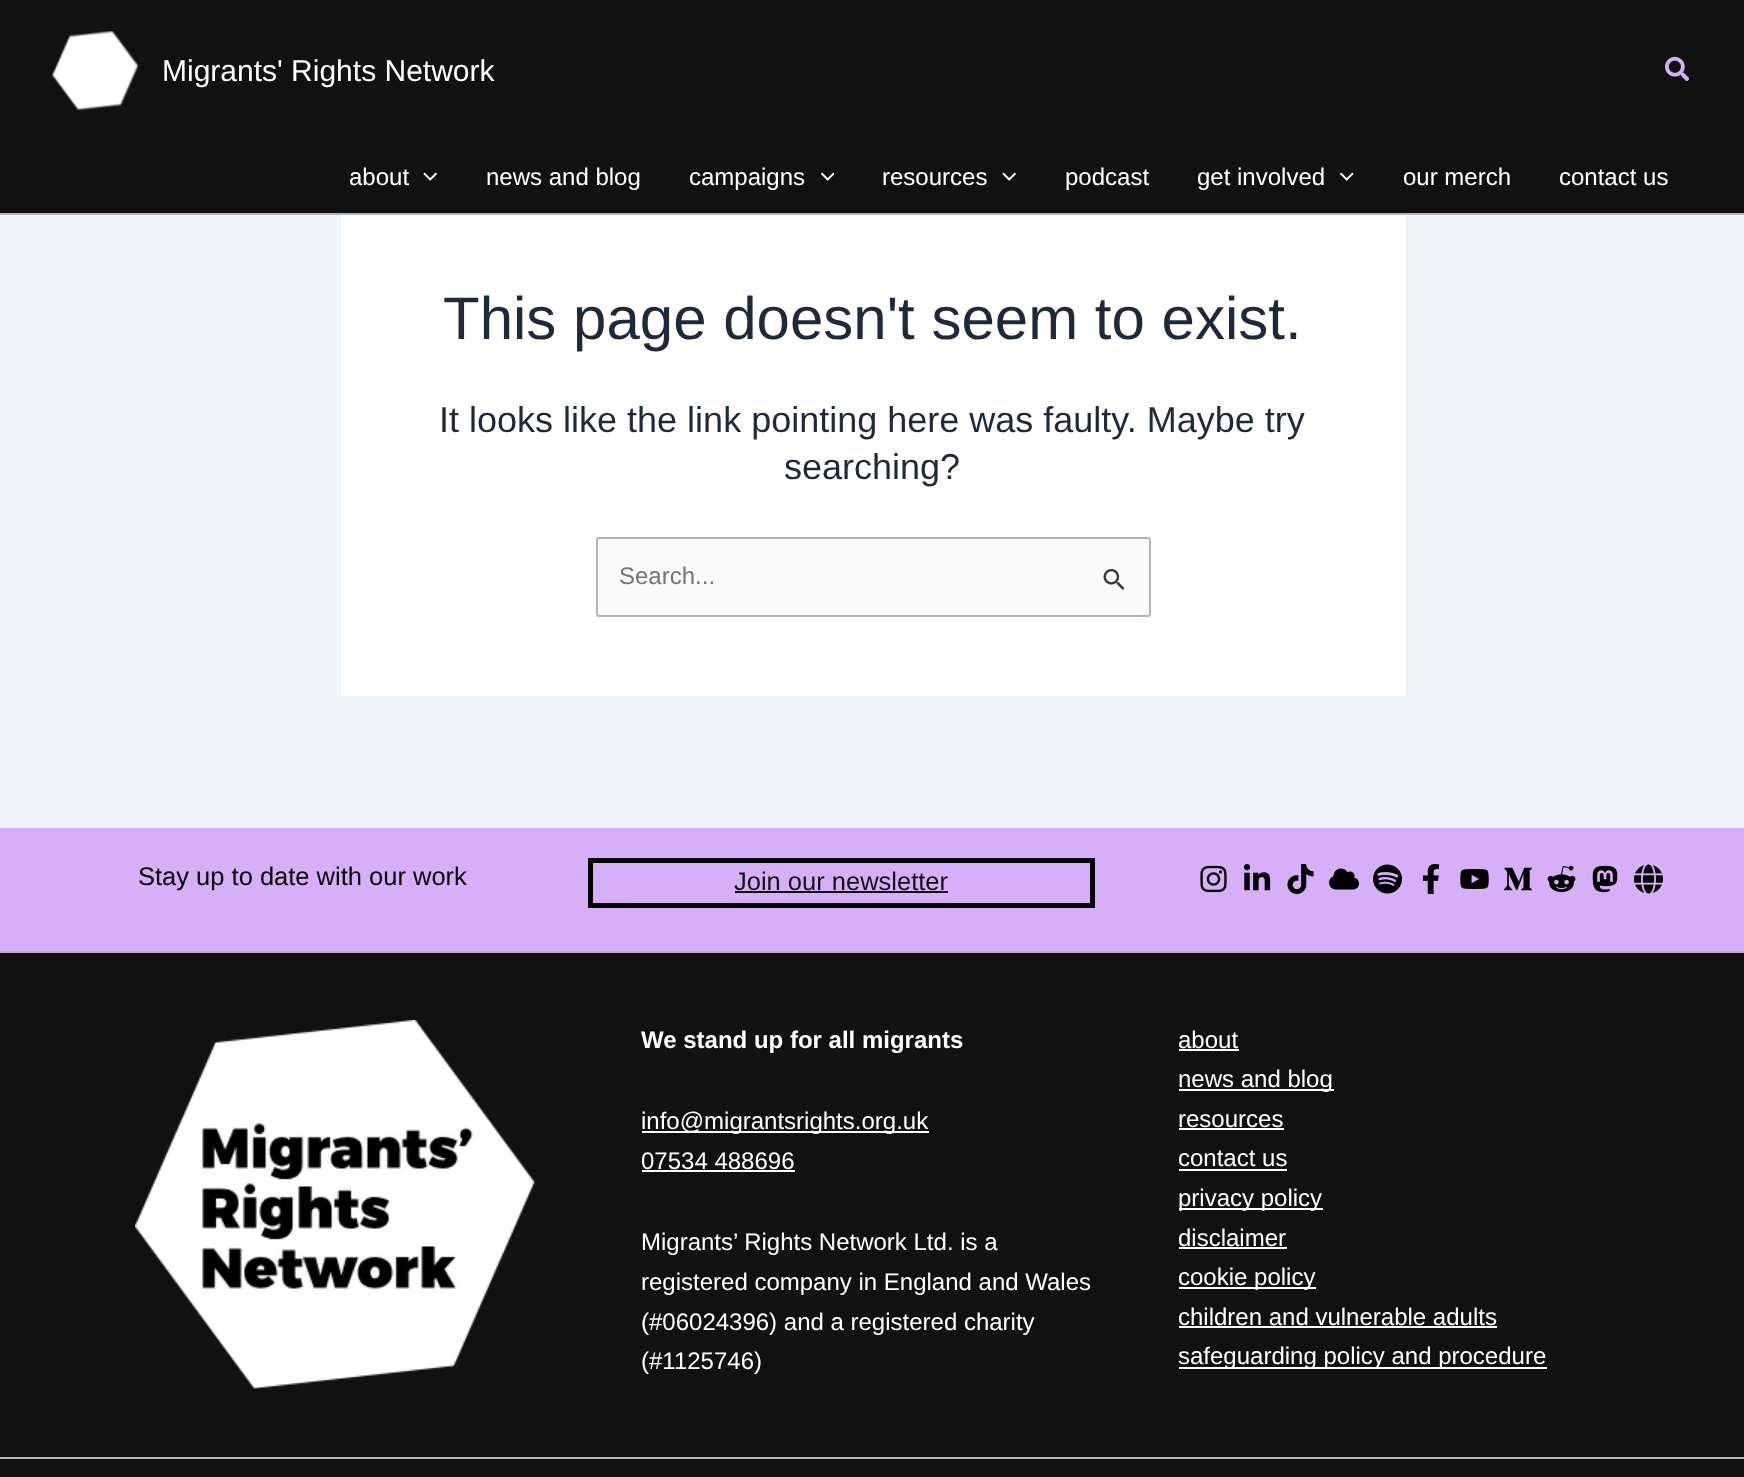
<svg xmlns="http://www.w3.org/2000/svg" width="1744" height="1477">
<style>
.a{font:30px Liberation Sans;fill:#fff}
.b{font:24px Liberation Sans;fill:#fff}
.c{font:60px Liberation Sans;fill:#1e293b}
.d{font:36px Liberation Sans;fill:#1e293b}
.e{font:24px Liberation Sans;fill:#757575}
.f{font:25.5px Liberation Sans;fill:#000}
.g{font:25.5px Liberation Sans;fill:#111}
.h{font:bold 24px Liberation Sans;fill:#fff}
</style>
<rect width="100%" height="100%" fill="#f0f5fa"/>
<path fill="#111" d="M0 0h1744v213H0z"/>
<image href="1.png" x="52" y="31" width="86" height="80"/>
<image href="2.png" x="1665" y="56" width="24" height="26"/>
<path fill="#adb6be" d="M0 213h1744v2H0z"/>
<image href="3.png" x="423" y="172" width="14" height="9"/>
<image href="4.png" x="821" y="172" width="13" height="9"/>
<image href="3.png" x="1002" y="172" width="14" height="9"/>
<image href="5.png" x="1340" y="172" width="14" height="9"/>
<path fill="#fff" d="M341 215h1065v481H341z"/>
<rect fill="#fafafa" stroke="#adb6be" stroke-width="2" x="597" y="538" width="553" height="78" rx="2"/>
<image href="6.png" x="1103" y="569" width="22" height="21"/>
<path fill="#d7aff9" d="M0 828h1744v123H0z"/>
<path fill="none" stroke="#000" stroke-width="5" d="M590.5 860.5h502v45H590.5z"/>
<path fill="#111" d="M735 891h213v2H735z"/>
<image href="7.png" x="1200" y="865" width="27" height="28"/>
<image href="8.png" x="1243" y="864" width="28" height="27"/>
<image href="9.png" x="1287" y="864" width="27" height="30"/>
<image href="10.png" x="1329" y="868" width="30" height="22"/>
<image href="11.png" x="1373" y="864" width="29" height="30"/>
<image href="12.png" x="1422" y="864" width="18" height="30"/>
<image href="13.png" x="1460" y="869" width="29" height="20"/>
<image href="14.png" x="1503" y="867" width="30" height="24"/>
<image href="15.png" x="1547" y="865" width="29" height="28"/>
<image href="16.png" x="1592" y="865" width="26" height="28"/>
<image href="17.png" x="1634" y="864" width="29" height="30"/>
<path fill="#111" d="M0 953h1744v504H0z"/>
<path fill="#adb6be" d="M0 951h1744v2H0z"/>
<image href="18.png" x="135" y="1020" width="400" height="369"/>
<path fill="#fff" d="M642 1131h287v2H642z"/>
<path fill="#fff" d="M642 1170h153v2H642z"/>
<path fill="#fff" d="M1179 1049h60v2H1179z"/>
<path fill="#fff" d="M1179 1089h155v2H1179z"/>
<path fill="#fff" d="M1179 1128h105v2H1179z"/>
<path fill="#fff" d="M1179 1169h108v2H1179z"/>
<path fill="#fff" d="M1179 1208h144v2H1179z"/>
<path fill="#fff" d="M1179 1247h108v2H1179z"/>
<path fill="#fff" d="M1179 1287h137v2H1179z"/>
<path fill="#fff" d="M1179 1326h318v2H1179z"/>
<path fill="#fff" d="M1179 1367h368v2H1179z"/>
<path fill="#111" d="M0 1459h1744v18H0z"/>
<path fill="#adb6be" d="M0 1457h1744v2H0z"/>
<text class="a" x="162" y="81">Migrants' Rights Network</text>
<text class="b" x="349" y="185">about</text>
<text class="b" x="486" y="185">news and blog</text>
<text class="b" x="689" y="185">campaigns</text>
<text class="b" x="882" y="185">resources</text>
<text class="b" x="1065" y="185">podcast</text>
<text class="b" x="1197" y="185">get involved</text>
<text class="b" x="1403" y="185">our merch</text>
<text class="b" x="1559" y="185">contact us</text>
<text class="c" x="443" y="339">This page doesn't seem to exist.</text>
<text class="d" x="439" y="432">It looks like the link pointing here was faulty. Maybe try</text>
<text class="d" x="784" y="479">searching?</text>
<text class="e" x="619" y="584">Search...</text>
<text class="f" x="138" y="885">Stay up to date with our work</text>
<text class="g" x="734" y="890">Join our newsletter</text>
<text class="h" x="641" y="1048">We stand up for all migrants</text>
<text class="b" x="641" y="1129">info@migrantsrights.org.uk</text>
<text class="b" x="641" y="1169">07534 488696</text>
<text class="b" x="641" y="1250">Migrants’ Rights Network Ltd. is a</text>
<text class="b" x="641" y="1290">registered company in England and Wales</text>
<text class="b" x="641" y="1330">(#06024396) and a registered charity</text>
<text class="b" x="641" y="1369">(#1125746)</text>
<text class="b" x="1178" y="1048">about</text>
<text class="b" x="1178" y="1087">news and blog</text>
<text class="b" x="1178" y="1127">resources</text>
<text class="b" x="1178" y="1166">contact us</text>
<text class="b" x="1178" y="1206">privacy policy</text>
<text class="b" x="1178" y="1246">disclaimer</text>
<text class="b" x="1178" y="1285">cookie policy</text>
<text class="b" x="1178" y="1325">children and vulnerable adults</text>
<text class="b" x="1178" y="1364">safeguarding policy and procedure</text>
</svg>
